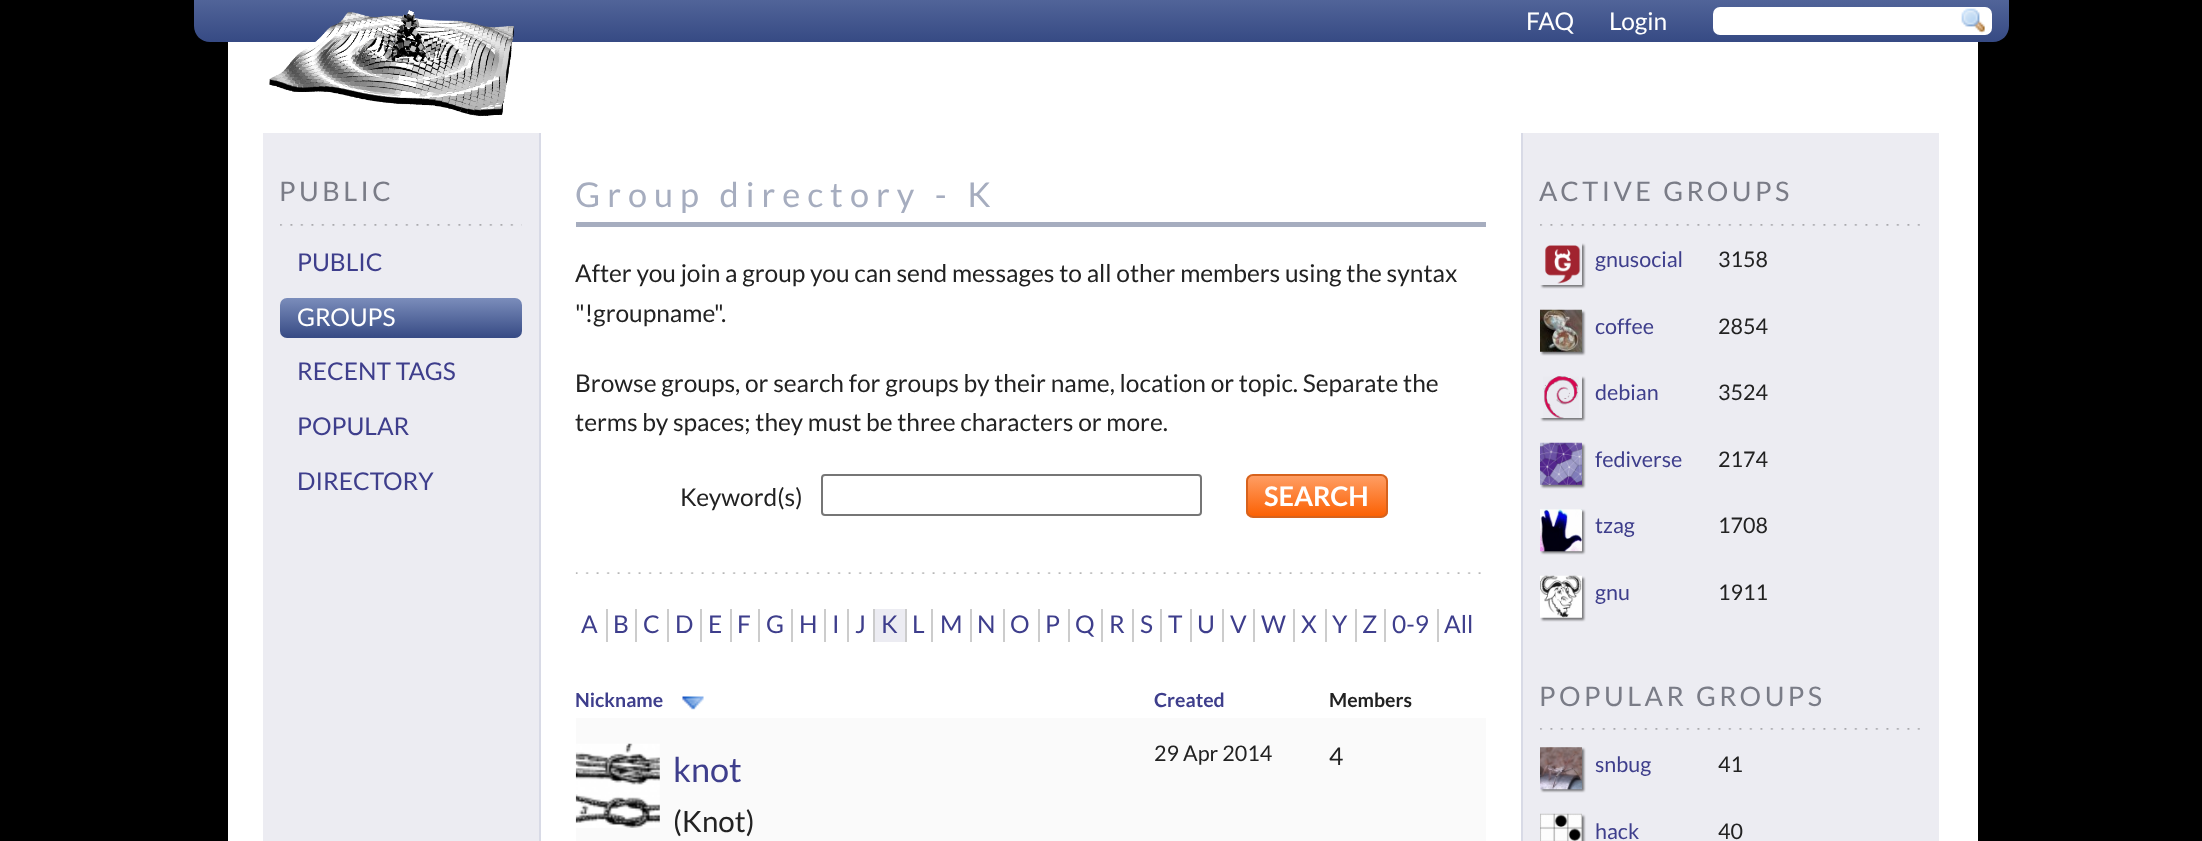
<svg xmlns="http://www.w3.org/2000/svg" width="2202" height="841">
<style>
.a{font:24.5px Lato;fill:#fff}
.b{font:27px Lato;letter-spacing:3.5px;fill:#7a7c87}
.c{font:24.5px Lato;fill:#3e3e8c}
.d{font:34.25px Lato;letter-spacing:7px;fill:#a6adbf}
.e{font:24.5px Lato;fill:#222}
.f{font:bold 27px Lato;fill:#fff}
.g{font:bold 19.5px Lato;fill:#3e3e8c}
.h{font:bold 19.5px Lato;fill:#222}
.i{font:34.25px Lato;fill:#3e3e8c}
.j{font:29.5px Lato;fill:#222}
.k{font:21.5px Lato;fill:#222}
.l{font:21.5px Lato;fill:#3e3e8c}
</style>
<defs>
<linearGradient id="g1" gradientUnits="userSpaceOnUse" x1="1102" y1="0" x2="1102" y2="42"><stop offset="0" stop-color="#516499"/><stop offset="1" stop-color="#364a84"/></linearGradient>
<linearGradient id="g2" gradientUnits="userSpaceOnUse" x1="401" y1="298" x2="401" y2="338"><stop offset="0" stop-color="#7b8dbb"/><stop offset="1" stop-color="#364a84"/></linearGradient>
<clipPath id="clip1"><rect x="1246" y="474" width="142" height="44" rx="7"/></clipPath>
<linearGradient id="g3" gradientUnits="userSpaceOnUse" x1="1317" y1="476" x2="1317" y2="516"><stop offset="0" stop-color="#ff9d63"/><stop offset="1" stop-color="#fb6104"/></linearGradient>
<clipPath id="clip2"><path d="M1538 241h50v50h-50zm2 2h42v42h-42z" clip-rule="evenodd"/></clipPath>
<clipPath id="clip3"><path d="M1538 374h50v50h-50zm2 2h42v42h-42z" clip-rule="evenodd"/></clipPath>
</defs>
<rect width="100%" height="100%" fill="#000"/>
<path fill="#fff" d="M228 42h1750v799H228z"/>
<path fill="url(#g1)" d="M194 0h1815v26c0 9-7 16-16 16h-1783c-9 0-16-7-16-16z"/>
<image href="1.png" x="269" y="10" width="245" height="107"/>
<rect fill="#fff" x="1713" y="7" width="279" height="28" rx="7"/>
<image href="2.png" x="1961" y="8" width="24" height="26"/>
<path fill="#ececf2" d="M1523 133h416v708H1523z"/>
<path fill="#d8dae6" d="M1521 133h2v708H1521z"/>
<path fill="#ececf2" d="M263 133h276v708H263z"/>
<path fill="#d8dae6" d="M539 133h2v708H539z"/>
<image href="3.png" x="280" y="224" width="242" height="2"/>
<rect fill="url(#g2)" x="280" y="298" width="242" height="40" rx="7"/>
<path fill="#a6adbf" d="M576 222h910v5H576z"/>
<image href="4.png" x="575" y="572" width="906" height="2"/>
<rect fill="none" stroke="#767676" stroke-width="2" x="822" y="475" width="379" height="40" rx="3"/>
<g clip-path="url(#clip1)">
<path fill="url(#g3)" d="M1246 476h142v40H1246z"/>
</g>
<rect fill="none" stroke="#d7621c" stroke-width="2" x="1247" y="475" width="140" height="42" rx="6"/>
<path fill="#ccc" d="M606 609h2v33H606z"/>
<path fill="#ccc" d="M635 609h2v33H635z"/>
<path fill="#ccc" d="M667 609h2v33H667z"/>
<path fill="#ccc" d="M700 609h2v33H700z"/>
<path fill="#ccc" d="M730 609h2v33H730z"/>
<path fill="#ccc" d="M758 609h2v33H758z"/>
<path fill="#ccc" d="M791 609h2v33H791z"/>
<path fill="#ccc" d="M824 609h2v33H824z"/>
<path fill="#ccc" d="M847 609h2v33H847z"/>
<path fill="#ececf2" d="M875 609h30v33H875z"/>
<path fill="#ccc" d="M873 609h2v33H873z"/>
<path fill="#ccc" d="M905 609h2v33H905z"/>
<path fill="#ccc" d="M931 609h2v33H931z"/>
<path fill="#ccc" d="M970 609h2v33H970z"/>
<path fill="#ccc" d="M1003 609h2v33H1003z"/>
<path fill="#ccc" d="M1038 609h2v33H1038z"/>
<path fill="#ccc" d="M1068 609h2v33H1068z"/>
<path fill="#ccc" d="M1101 609h2v33H1101z"/>
<path fill="#ccc" d="M1132 609h2v33H1132z"/>
<path fill="#ccc" d="M1160 609h2v33H1160z"/>
<path fill="#ccc" d="M1190 609h2v33H1190z"/>
<path fill="#ccc" d="M1222 609h2v33H1222z"/>
<path fill="#ccc" d="M1253 609h2v33H1253z"/>
<path fill="#ccc" d="M1293 609h2v33H1293z"/>
<path fill="#ccc" d="M1325 609h2v33H1325z"/>
<path fill="#ccc" d="M1355 609h2v33H1355z"/>
<path fill="#ccc" d="M1384 609h2v33H1384z"/>
<path fill="#ccc" d="M1437 609h2v33H1437z"/>
<image href="5.png" x="682" y="696" width="22" height="14"/>
<path fill="#fafafa" d="M576 718h910v123H576z"/>
<image href="6.png" x="575" y="743" width="85" height="85"/>
<image href="7.png" x="1540" y="224" width="380" height="2"/>
<g clip-path="url(#clip2)">
<path fill="#00000080" filter="blur(1px)" d="M1542 245h42v42H1542z"/>
</g>
<image href="8.png" x="1545" y="245" width="36" height="39"/>
<path fill="#00000080" filter="blur(1px)" d="M1542 312h42v42H1542z"/>
<image href="9.png" x="1540" y="309" width="42" height="43"/>
<g clip-path="url(#clip3)">
<path fill="#00000080" filter="blur(1px)" d="M1542 378h42v42H1542z"/>
</g>
<image href="10.png" x="1543" y="376" width="36" height="43"/>
<path fill="#00000080" filter="blur(1px)" d="M1542 445h42v42H1542z"/>
<image href="11.png" x="1540" y="442" width="42" height="43"/>
<path fill="#00000080" filter="blur(1px)" d="M1542 511h42v42H1542z"/>
<image href="12.png" x="1540" y="509" width="42" height="43"/>
<path fill="#00000080" filter="blur(1px)" d="M1542 578h42v42H1542z"/>
<image href="13.png" x="1540" y="575" width="42" height="43"/>
<image href="14.png" x="1540" y="728" width="380" height="2"/>
<path fill="#00000080" filter="blur(1px)" d="M1542 749h42v42H1542z"/>
<image href="15.png" x="1540" y="747" width="42" height="43"/>
<path fill="#00000080" filter="blur(1px)" d="M1542 816h42v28H1542z"/>
<image href="16.png" x="1540" y="813" width="42" height="28"/>
<text class="a" x="1526" y="30">FAQ</text>
<text class="a" x="1609" y="30">Login</text>
<text class="b" x="279" y="201">PUBLIC</text>
<text class="c" x="297" y="271">PUBLIC</text>
<text class="a" x="297" y="326">GROUPS</text>
<text class="c" x="297" y="380">RECENT TAGS</text>
<text class="c" x="297" y="435">POPULAR</text>
<text class="c" x="297" y="490">DIRECTORY</text>
<text class="d" x="575" y="207">Group directory - K</text>
<text class="e" x="575" y="282">After you join a group you can send messages to all other members using the syntax</text>
<text class="e" x="575" y="322">"!groupname".</text>
<text class="e" x="575" y="392">Browse groups, or search for groups by their name, location or topic. Separate the</text>
<text class="e" x="575" y="431">terms by spaces; they must be three characters or more.</text>
<text class="e" x="680" y="506">Keyword(s)</text>
<text class="f" x="1264" y="506">SEARCH</text>
<text class="c" x="581" y="633">A</text>
<text class="c" x="613" y="633">B</text>
<text class="c" x="643" y="633">C</text>
<text class="c" x="675" y="633">D</text>
<text class="c" x="708" y="633">E</text>
<text class="c" x="737" y="633">F</text>
<text class="c" x="766" y="633">G</text>
<text class="c" x="799" y="633">H</text>
<text class="c" x="832" y="633">I</text>
<text class="c" x="855" y="633">J</text>
<text class="c" x="881" y="633">K</text>
<text class="c" x="912" y="633">L</text>
<text class="c" x="940" y="633">M</text>
<text class="c" x="977" y="633">N</text>
<text class="c" x="1010" y="633">O</text>
<text class="c" x="1045" y="633">P</text>
<text class="c" x="1075" y="633">Q</text>
<text class="c" x="1109" y="633">R</text>
<text class="c" x="1140" y="633">S</text>
<text class="c" x="1168" y="633">T</text>
<text class="c" x="1197" y="633">U</text>
<text class="c" x="1230" y="633">V</text>
<text class="c" x="1261" y="633">W</text>
<text class="c" x="1301" y="633">X</text>
<text class="c" x="1332" y="633">Y</text>
<text class="c" x="1362" y="633">Z</text>
<text class="c" x="1392" y="633">0-9</text>
<text class="c" x="1444" y="633">All</text>
<text class="g" x="575" y="707">Nickname</text>
<text class="g" x="1154" y="707">Created</text>
<text class="h" x="1329" y="707">Members</text>
<text class="i" x="673" y="782">knot</text>
<text class="j" x="673" y="832">(Knot)</text>
<text class="k" x="1154" y="761">29 Apr 2014</text>
<text class="e" x="1329" y="765">4</text>
<text class="b" x="1539" y="201">ACTIVE GROUPS</text>
<text class="l" x="1595" y="267">gnusocial</text>
<text class="k" x="1718" y="267">3158</text>
<text class="l" x="1595" y="334">coffee</text>
<text class="k" x="1718" y="334">2854</text>
<text class="l" x="1595" y="400">debian</text>
<text class="k" x="1718" y="400">3524</text>
<text class="l" x="1595" y="467">fediverse</text>
<text class="k" x="1718" y="467">2174</text>
<text class="l" x="1595" y="533">tzag</text>
<text class="k" x="1718" y="533">1708</text>
<text class="l" x="1595" y="600">gnu</text>
<text class="k" x="1718" y="600">1911</text>
<text class="b" x="1539" y="706">POPULAR GROUPS</text>
<text class="l" x="1595" y="772">snbug</text>
<text class="k" x="1718" y="772">41</text>
<text class="l" x="1595" y="839">hack</text>
<text class="k" x="1718" y="839">40</text>
</svg>
